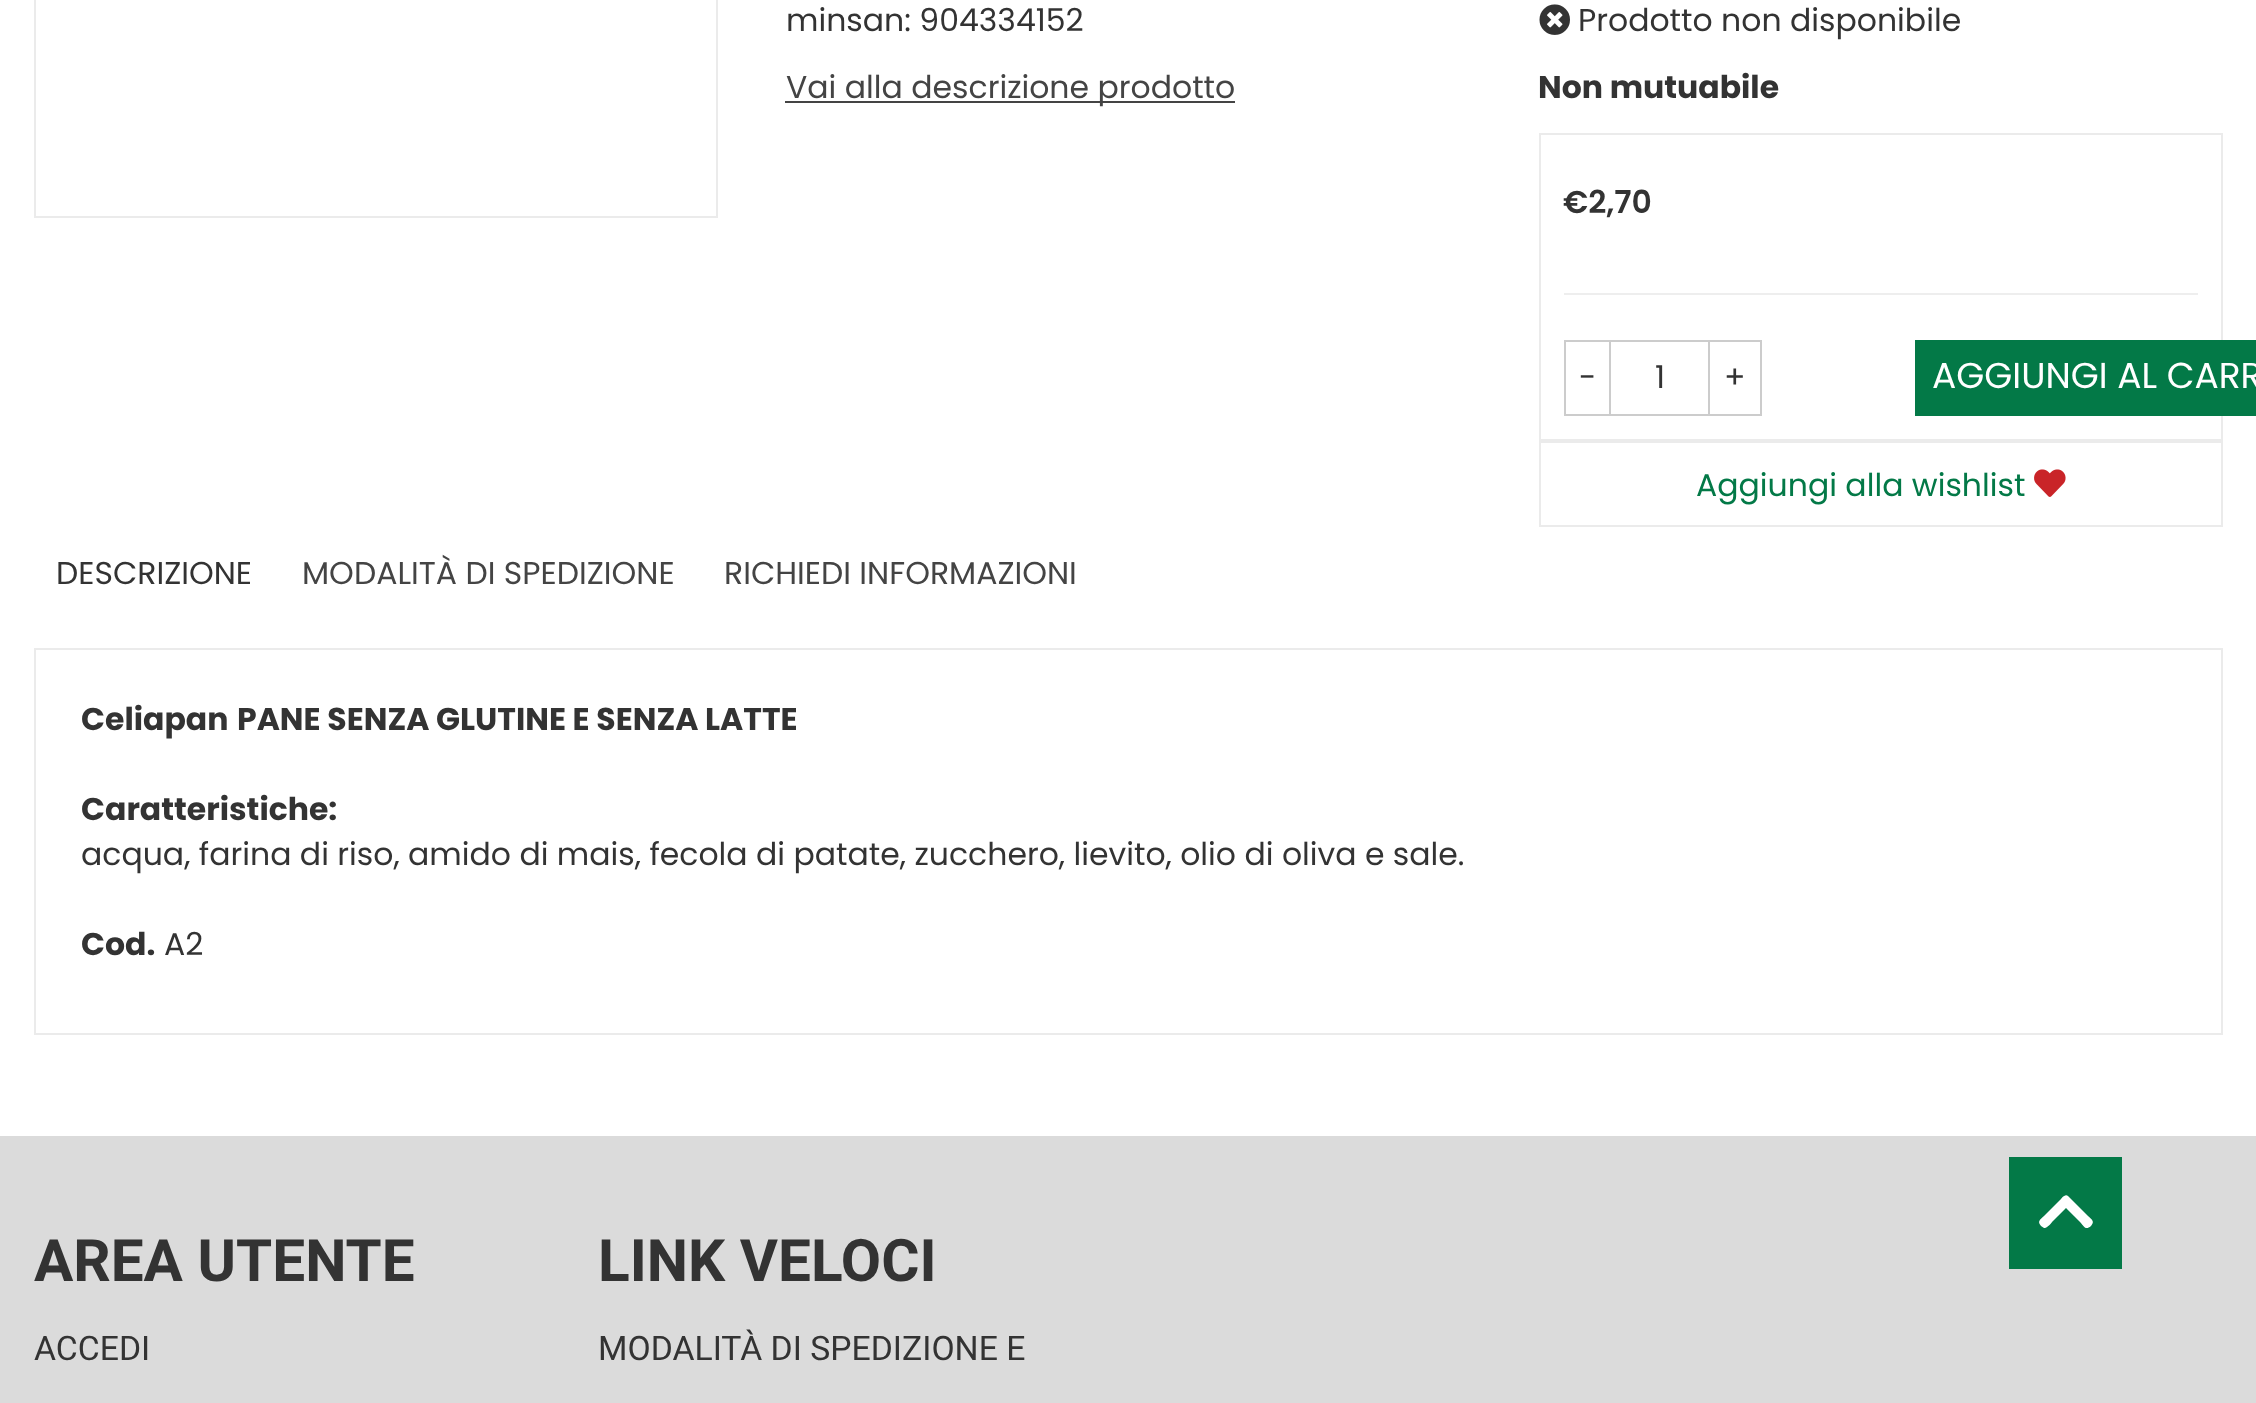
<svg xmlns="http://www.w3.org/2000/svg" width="2256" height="1403">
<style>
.a{font:31.5px Poppins;fill:#333}
.b{font:31.5px Poppins;fill:#444}
.c{font:bold 31.5px Poppins;fill:#333}
.d{font:600 31.5px Poppins;fill:#333}
.e{font:36px Poppins;fill:#fff}
.f{font:31.5px Poppins;fill:#037947}
.g{font:bold 58.5px Roboto;fill:#333}
.h{font:33.75px Roboto;fill:#333}
</style>
<rect width="100%" height="100%" fill="#fff"/>
<path fill="none" stroke="#ebebeb" stroke-width="2" d="M35 -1h682v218H35z"/>
<path fill="#444" d="M785 101h450v2H785z"/>
<image href="1.png" x="1539" y="4" width="31" height="31"/>
<path fill="none" stroke="#ebebeb" stroke-width="2" d="M1540 134h682v306H1540z"/>
<path fill="#eee" d="M1564 293h634v2H1564z"/>
<path fill="none" stroke="#ccc" stroke-width="2" d="M1565 341h45v74H1565z"/>
<path fill="none" stroke="#ccc" stroke-width="2" d="M1610 341h99v74H1610z"/>
<path fill="none" stroke="#ccc" stroke-width="2" d="M1709 341h52v74H1709z"/>
<path fill="#037947" d="M1915 340h341v76H1915z"/>
<path fill="none" stroke="#ebebeb" stroke-width="2" d="M1540 442h682v84H1540z"/>
<image href="2.png" x="2034" y="469" width="32" height="28"/>
<path fill="none" stroke="#ebebeb" stroke-width="2" d="M35 649h2187v385H35z"/>
<path fill="#dbdbdb" d="M0 1136h2256v267H0z"/>
<path fill="#037947" d="M2009 1157h113v112H2009z"/>
<path fill="#fff" d="M2068 1196l20 20c4 4 7 5 3 10c-6 5-7 0-12-5l-13-13l-13 13c-1 1-6 8-9 7l-3-2c-4-5-1-6 3-10l16-16c1-1 5-7 8-4z"/>
<text class="a" x="786" y="31">minsan: 904334152</text>
<text class="b" x="786" y="98">Vai alla descrizione prodotto</text>
<text class="a" x="1578" y="31">Prodotto non disponibile</text>
<text class="c" x="1538" y="98">Non mutuabile</text>
<text class="d" x="1563" y="213">€2,70</text>
<text class="a" x="1579" y="388">-</text>
<text class="a" x="1655" y="388">1</text>
<text class="a" x="1724" y="388">+</text>
<text class="e" x="1932" y="388">AGGIUNGI AL CARR</text>
<text class="f" x="1696" y="496">Aggiungi alla wishlist</text>
<text class="a" x="56" y="584">DESCRIZIONE</text>
<text class="b" x="302" y="584">MODALITÀ DI SPEDIZIONE</text>
<text class="b" x="724" y="584">RICHIEDI INFORMAZIONI</text>
<text class="c" x="81" y="730">Celiapan</text>
<text class="c" x="237" y="730">PANE SENZA GLUTINE E SENZA LATTE</text>
<text class="c" x="81" y="820">Caratteristiche:</text>
<text class="a" x="81" y="865">acqua, farina di riso, amido di mais, fecola di patate, zucchero, lievito, olio di oliva e sale.</text>
<text class="c" x="81" y="955">Cod.</text>
<text class="a" x="164" y="955">A2</text>
<text class="g" x="34" y="1281">AREA UTENTE</text>
<text class="h" x="34" y="1360">ACCEDI</text>
<text class="g" x="598" y="1281">LINK VELOCI</text>
<text class="h" x="598" y="1360">MODALITÀ DI SPEDIZIONE E</text>
</svg>
